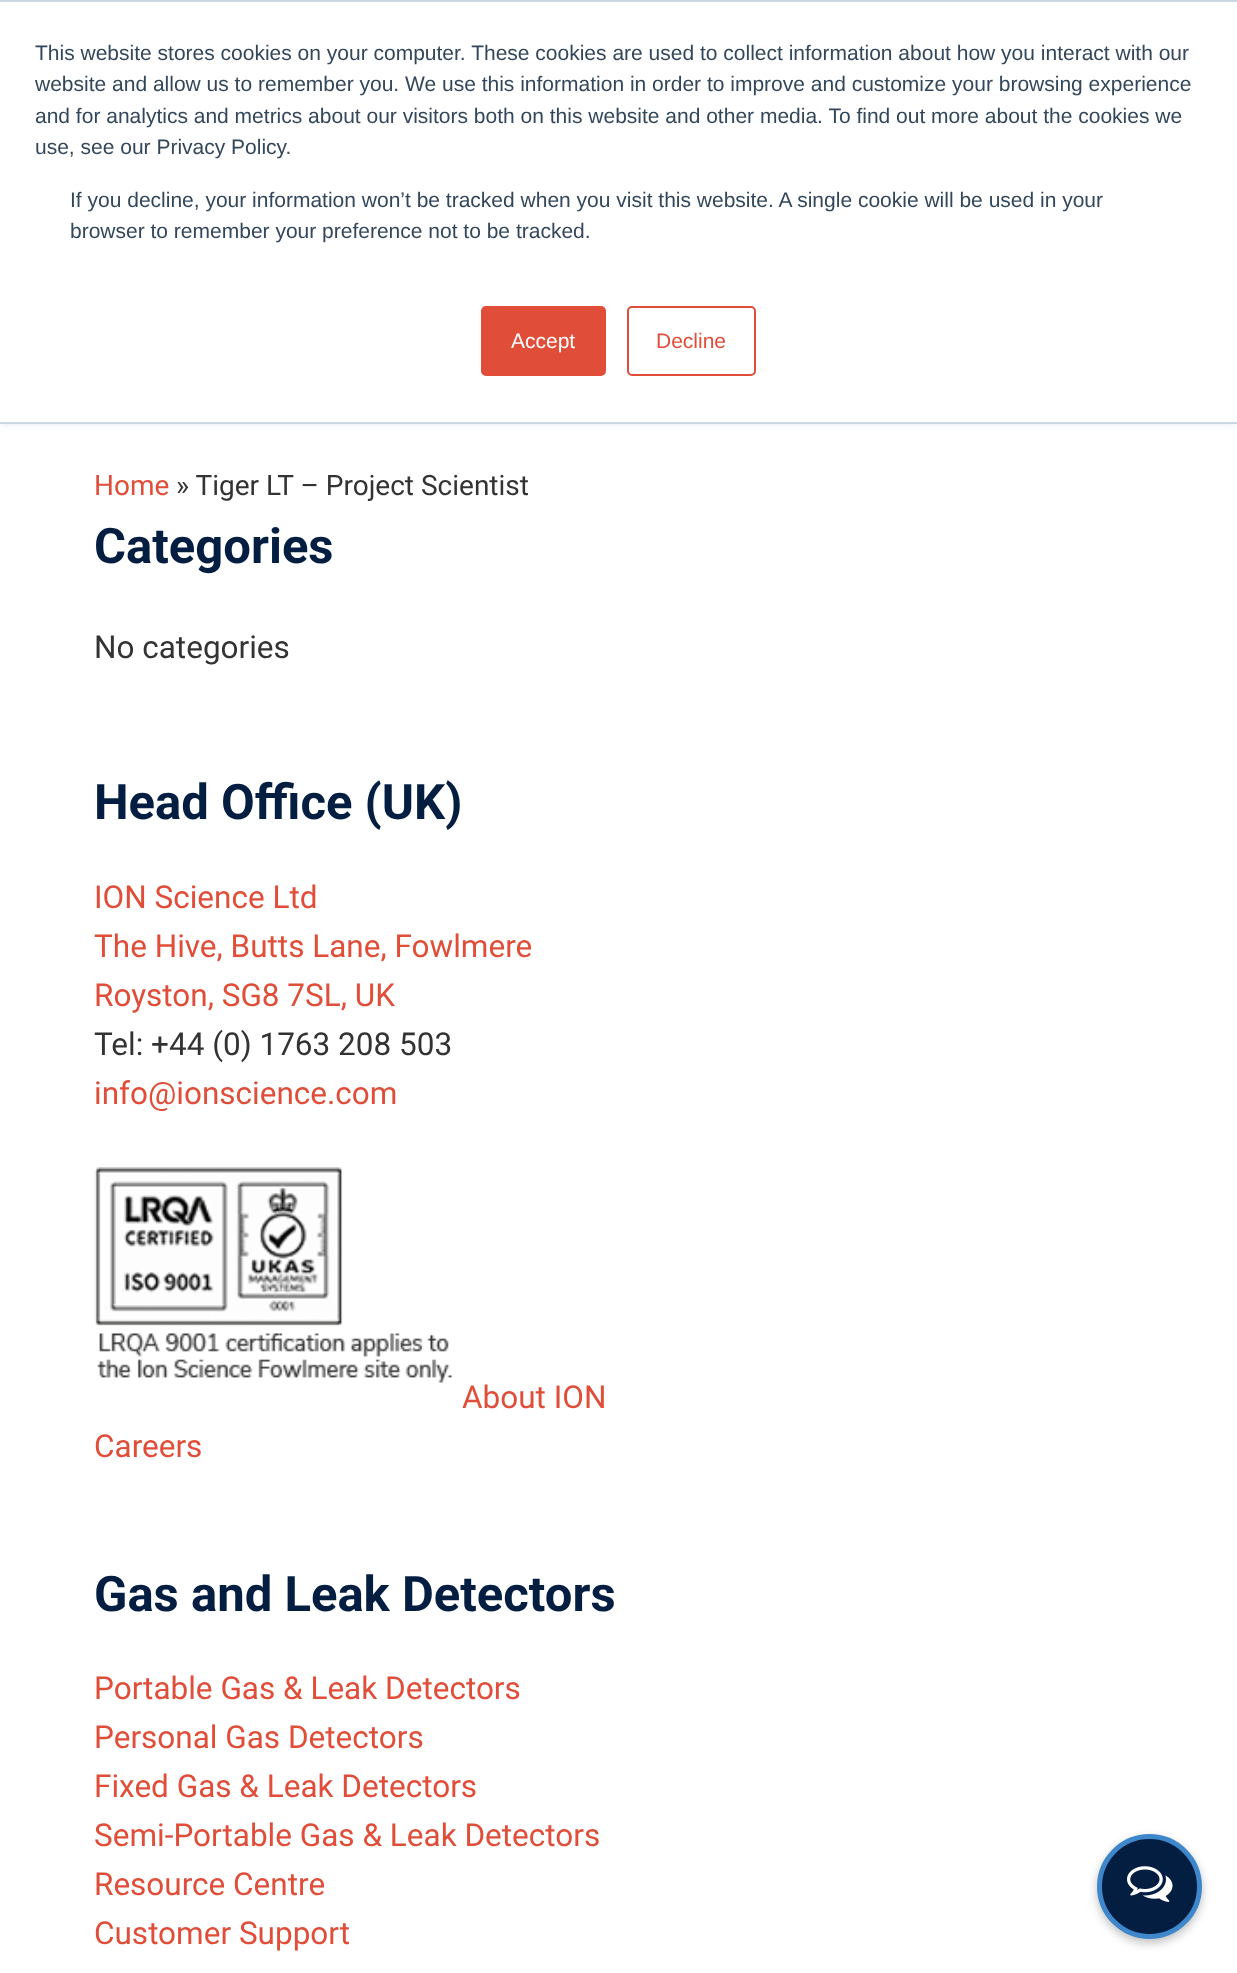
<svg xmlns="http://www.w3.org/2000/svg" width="1237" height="1973">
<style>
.a{font:21px Liberation Sans;fill:#33475b}
.b{font:21px Liberation Sans;fill:#fff}
.c{font:21px Liberation Sans;fill:#e04e39}
.d{font:28px Roboto;fill:#e04e39}
.e{font:28px Roboto;fill:#333}
.f{font:bold 49px Roboto;fill:#041e42}
.g{font:31.5px Roboto;fill:#333}
.h{font:31.5px Roboto;fill:#e04e39}
</style>
<rect width="100%" height="100%" fill="#fff"/>
<path fill="#eaf0f6" filter="blur(4.5px)" d="M0 2h1237v423H0z"/>
<path fill="#fff" d="M0 2h1237v420H0z"/>
<path fill="#cbd6e2" d="M0 0h1237v2H0z"/>
<path fill="#cbd6e2" d="M0 422h1237v2H0z"/>
<rect fill="#e04e39" stroke="#e04e39" stroke-width="2" x="482" y="307" width="123" height="68" rx="4"/>
<rect fill="none" stroke="#e04e39" stroke-width="2" x="628" y="307" width="127" height="68" rx="4"/>
<image href="1.png" x="94" y="1167" width="358" height="216"/>
<rect fill="#00000040" filter="blur(5px)" x="1097" y="1838" width="105" height="105" rx="52.5"/>
<circle fill="#041e42" stroke="#3e87cb" stroke-width="5" cx="1149.5" cy="1886.5" r="50"/>
<image href="2.png" x="1127" y="1866" width="46" height="36"/>
<text class="a" x="35" y="60">This website stores cookies on your computer. These cookies are used to collect information about how you interact with our</text>
<text class="a" x="35" y="91">website and allow us to remember you. We use this information in order to improve and customize your browsing experience</text>
<text class="a" x="35" y="123">and for analytics and metrics about our visitors both on this website and other media. To find out more about the cookies we</text>
<text class="a" x="35" y="154">use, see our Privacy Policy.</text>
<text class="a" x="70" y="207">If you decline, your information won’t be tracked when you visit this website. A single cookie will be used in your</text>
<text class="a" x="70" y="238">browser to remember your preference not to be tracked.</text>
<text class="b" x="511" y="348">Accept</text>
<text class="c" x="656" y="348">Decline</text>
<text class="d" x="94" y="495">Home</text>
<text class="e" x="176" y="495">» Tiger LT – Project Scientist</text>
<text class="f" x="94" y="563">Categories</text>
<text class="g" x="94" y="658">No categories</text>
<text class="f" x="94" y="819">Head Office (UK)</text>
<text class="h" x="94" y="908">ION Science Ltd</text>
<text class="h" x="94" y="957">The Hive, Butts Lane, Fowlmere</text>
<text class="h" x="94" y="1006">Royston, SG8 7SL, UK</text>
<text class="g" x="94" y="1055">Tel: +44 (0) 1763 208 503</text>
<text class="h" x="94" y="1104">info@ionscience.com</text>
<text class="h" x="462" y="1408">About ION</text>
<text class="h" x="94" y="1457">Careers</text>
<text class="f" x="94" y="1611">Gas and Leak Detectors</text>
<text class="h" x="94" y="1699">Portable Gas &amp; Leak Detectors</text>
<text class="h" x="94" y="1748">Personal Gas Detectors</text>
<text class="h" x="94" y="1797">Fixed Gas &amp; Leak Detectors</text>
<text class="h" x="94" y="1846">Semi-Portable Gas &amp; Leak Detectors</text>
<text class="h" x="94" y="1895">Resource Centre</text>
<text class="h" x="94" y="1944">Customer Support</text>
</svg>
